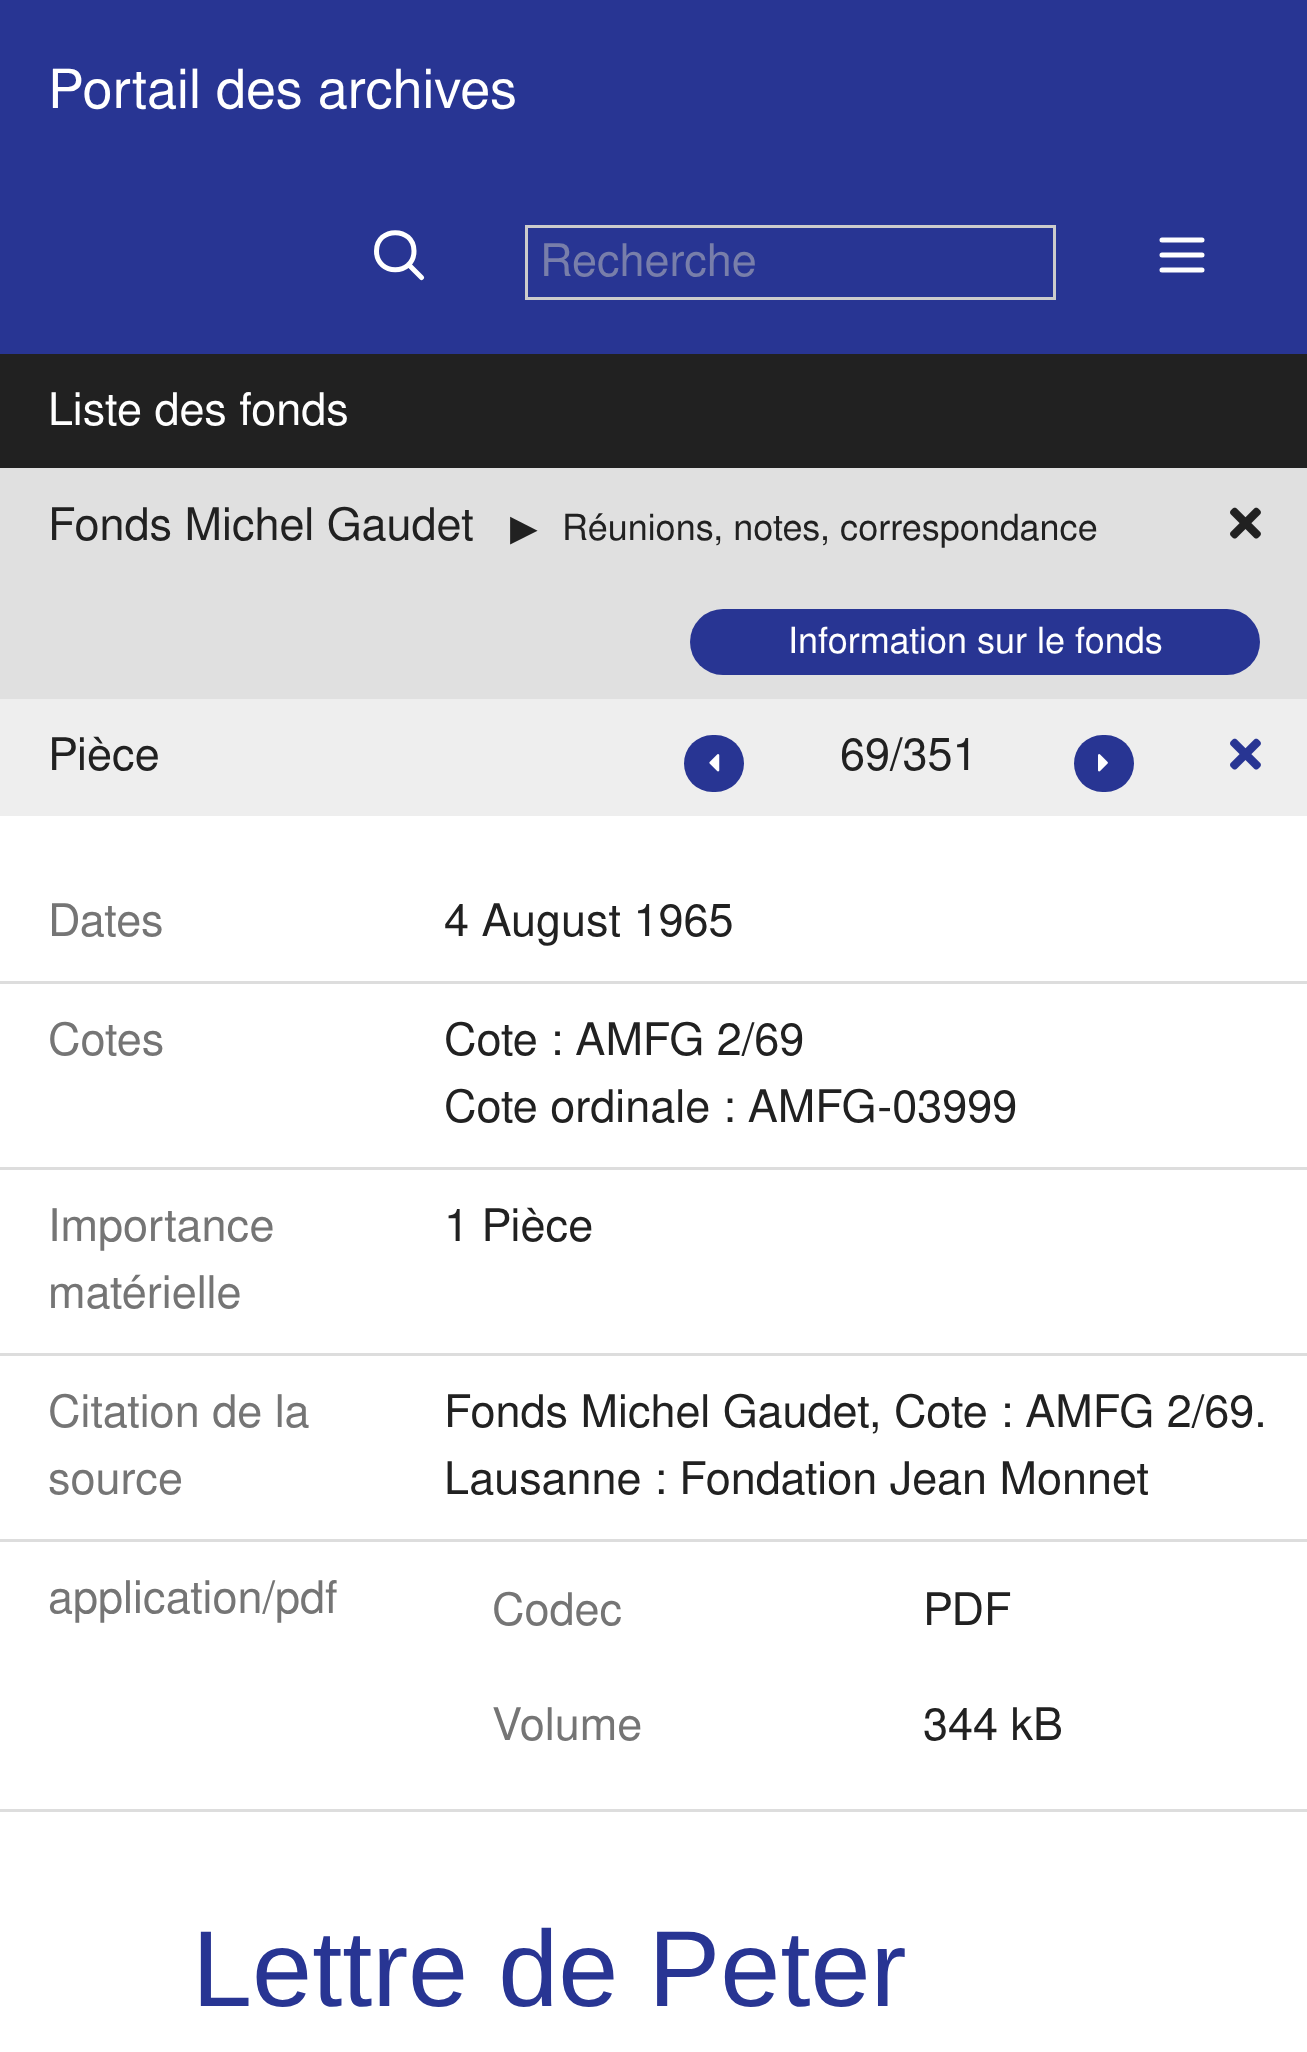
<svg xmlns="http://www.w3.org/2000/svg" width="1307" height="2052">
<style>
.a{font:54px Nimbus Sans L;fill:#fff}
.b{font:45px Nimbus Sans L;fill:#787eaa}
.c{font:45px Nimbus Sans L;fill:#fff}
.d{font:45px Nimbus Sans L;fill:#212121}
.e{font:36px DejaVu Sans;fill:#212121}
.f{font:36px Nimbus Sans L;fill:#212121}
.g{font:36px Nimbus Sans L;fill:#fff}
.h{font:45px Nimbus Sans L;fill:#757575}
.i{font:108px Liberation Sans;fill:#283593}
</style>
<rect width="100%" height="100%" fill="#fff"/>
<path fill="#283593" d="M0 0h1307v354H0z"/>
<path fill="none" stroke="#fff" stroke-width="5" stroke-linecap="round" stroke-linejoin="round" d="M408.5 264.5l13 13m-7.5-26.5c0 25-37.5 25-37.5 0c0-24.5 37.5-24.5 37.5 0z"/>
<path fill="none" stroke="#ccc" stroke-width="3" d="M526.5 226.5h528v72H526.5z"/>
<path fill="none" stroke="#fff" stroke-width="5" stroke-linecap="round" stroke-linejoin="round" d="M1162 240h40m-40 15h40m-40 15h40"/>
<path fill="#212121" d="M0 354h1307v114H0z"/>
<path fill="#e0e0e0" d="M0 468h1307v231H0z"/>
<image href="1.png" x="1230" y="507" width="31" height="32"/>
<rect fill="#283593" x="690" y="609" width="570" height="66" rx="33"/>
<path fill="#eee" d="M0 699h1307v117H0z"/>
<rect fill="#283593" x="684" y="735" width="60" height="57" rx="28.5"/>
<image href="2.png" x="709" y="754" width="11" height="18"/>
<rect fill="#283593" x="1074" y="735" width="60" height="57" rx="28.5"/>
<image href="3.png" x="1098" y="754" width="10" height="18"/>
<image href="4.png" x="1230" y="738" width="31" height="32"/>
<path fill="#ddd" d="M0 981h1307v3H0z"/>
<path fill="#ddd" d="M0 1167h1307v3H0z"/>
<path fill="#ddd" d="M0 1353h1307v3H0z"/>
<path fill="#ddd" d="M0 1539h1307v3H0z"/>
<path fill="#ddd" d="M0 1809h1307v3H0z"/>
<text class="a" x="48" y="108">Portail des archives</text>
<text class="b" x="540" y="276">Recherche</text>
<text class="c" x="48" y="425">Liste des fonds</text>
<text class="d" x="48" y="540">Fonds Michel Gaudet</text>
<text class="e" x="510" y="540">▶</text>
<text class="f" x="562" y="540">Réunions, notes, correspondance</text>
<text class="g" x="788" y="653">Information sur le fonds</text>
<text class="d" x="48" y="770">Pièce</text>
<text class="d" x="840" y="770">69/351</text>
<text class="h" x="48" y="936">Dates</text>
<text class="d" x="444" y="936">4 August 1965</text>
<text class="h" x="48" y="1055">Cotes</text>
<text class="d" x="444" y="1055">Cote : AMFG 2/69</text>
<text class="d" x="444" y="1122">Cote ordinale : AMFG-03999</text>
<text class="h" x="48" y="1241">Importance</text>
<text class="h" x="48" y="1308">matérielle</text>
<text class="d" x="444" y="1241">1 Pièce</text>
<text class="h" x="48" y="1427">Citation de la</text>
<text class="h" x="48" y="1494">source</text>
<text class="d" x="444" y="1427">Fonds Michel Gaudet, Cote : AMFG 2/69.</text>
<text class="d" x="444" y="1494">Lausanne : Fondation Jean Monnet</text>
<text class="h" x="48" y="1613">application/pdf</text>
<text class="h" x="492" y="1625">Codec</text>
<text class="d" x="923" y="1625">PDF</text>
<text class="h" x="492" y="1740">Volume</text>
<text class="d" x="923" y="1740">344 kB</text>
<text class="i" x="192" y="2006">Lettre de Peter</text>
</svg>
